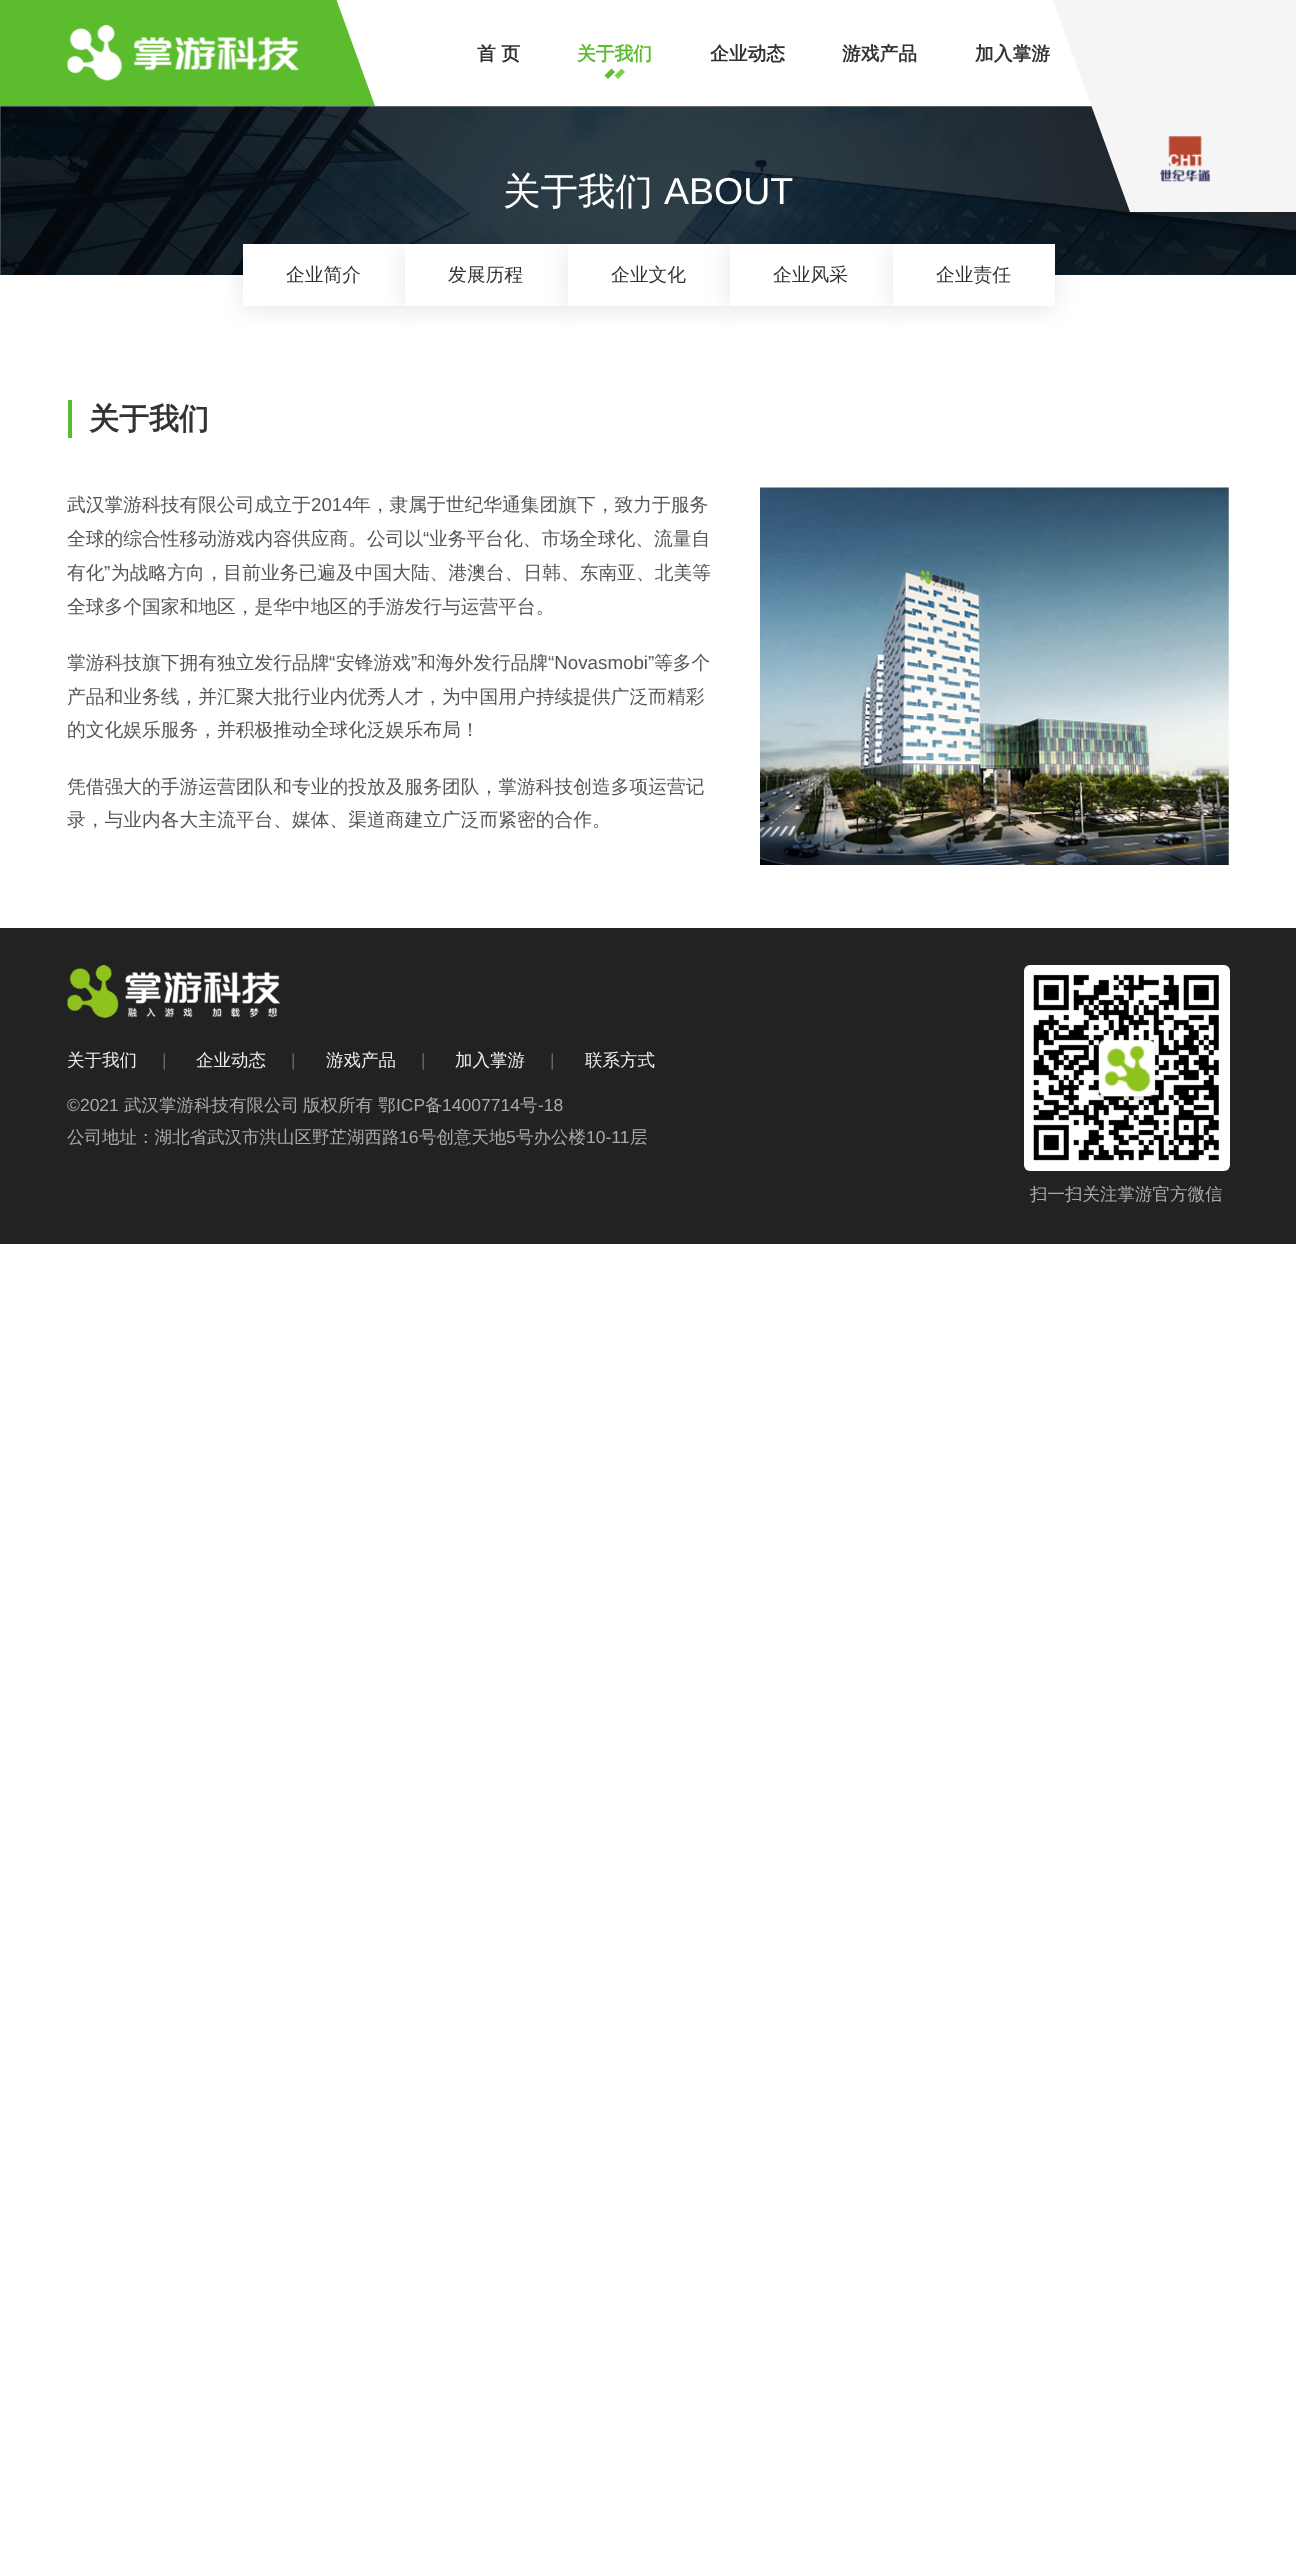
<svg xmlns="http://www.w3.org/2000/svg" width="1296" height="2563">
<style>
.a{font:bold 18.75px WenQuanYi Zen Hei;fill:#333}
.b{font:bold 18.75px WenQuanYi Zen Hei;fill:#5bbc2e}
.c{font:500 37.5px WenQuanYi Zen Hei;fill:#fff}
.d{font:37.5px Liberation Sans;fill:#fff}
.e{font:500 18.75px WenQuanYi Zen Hei;fill:#333}
.f{font:bold 30px WenQuanYi Zen Hei;fill:#333}
.g{font:500 18.75px WenQuanYi Zen Hei;fill:#555}
.h{font:18.75px Liberation Sans;fill:#555}
.i{font:500 17.5px WenQuanYi Zen Hei;fill:#eee}
.j{font:17.5px Liberation Sans;fill:#666}
.k{font:17.5px Liberation Sans;fill:#aaa}
.l{font:500 17.5px WenQuanYi Zen Hei;fill:#aaa}
</style>
<rect width="100%" height="100%" fill="#fff"/>
<path fill="#5bbc2e" d="M-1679-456h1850l204 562h-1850z"/>
<image href="1.png" x="67" y="25" width="232" height="56"/>
<path fill="#5bbc2e" d="M604.5 75.5l7-7l3.5 3.5l-7 7z"/>
<path fill="#75d34a" d="M614.5 75.5l7-7l3.5 3.5l-7 7z"/>
<image href="3.png" x="0" y="106" width="1296" height="169"/>
<path fill="#0000001a" filter="blur(12.5px)" d="M243 246h162v63H243z"/>
<path fill="#fff" d="M243 244h162v62H243z"/>
<path fill="#0000001a" filter="blur(12.5px)" d="M405 246h163v63H405z"/>
<path fill="#fff" d="M405 244h163v62H405z"/>
<path fill="#0000001a" filter="blur(12.5px)" d="M568 246h162v63H568z"/>
<path fill="#fff" d="M568 244h162v62H568z"/>
<path fill="#0000001a" filter="blur(12.5px)" d="M730 246h163v63H730z"/>
<path fill="#fff" d="M730 244h163v62H730z"/>
<path fill="#0000001a" filter="blur(12.5px)" d="M893 246h162v63H893z"/>
<path fill="#f5f5f5" d="M748-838h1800l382 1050h-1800z"/>
<image href="2.png" x="1159" y="136" width="51" height="46"/>
<path fill="#fff" d="M893 244h162v62H893z"/>
<path fill="#5bbc2e" d="M68 400h4v38H68z"/>
<image href="4.png" x="760" y="487" width="469" height="378"/>
<path fill="#222" d="M0 928h1296v316H0z"/>
<image href="5.png" x="67" y="965" width="213" height="53"/>
<rect fill="#fff" x="1024" y="965" width="206" height="206" rx="6"/>
<image href="6.png" x="1033" y="974" width="186" height="187"/>
<text class="a" x="477" y="60">首 页</text>
<text class="b" x="577" y="60">关于我们</text>
<text class="a" x="710" y="60">企业动态</text>
<text class="a" x="842" y="60">游戏产品</text>
<text class="a" x="975" y="60">加入掌游</text>
<text class="c" x="503" y="204">关于我们</text>
<text class="d" x="664" y="204">ABOUT</text>
<text class="e" x="286" y="281">企业简介</text>
<text class="e" x="448" y="281">发展历程</text>
<text class="e" x="611" y="281">企业文化</text>
<text class="e" x="773" y="281">企业风采</text>
<text class="e" x="936" y="281">企业责任</text>
<text class="f" x="89" y="429">关于我们</text>
<text class="g" x="67" y="511">武汉掌游科技有限公司成立于</text>
<text class="h" x="311" y="511">2014</text>
<text class="g" x="352" y="511">年，隶属于世纪华通集团旗下，致力于服务</text>
<text class="g" x="67" y="545">全球的综合性移动游戏内容供应商。公司以</text>
<text class="h" x="423" y="545">“</text>
<text class="g" x="429" y="545">业务平台化、市场全球化、流量自</text>
<text class="g" x="67" y="579">有化</text>
<text class="h" x="104" y="579">”</text>
<text class="g" x="111" y="579">为战略方向，目前业务已遍及中国大陆、港澳台、日韩、东南亚、北美等</text>
<text class="g" x="67" y="613">全球多个国家和地区，是华中地区的手游发行与运营平台。</text>
<text class="g" x="67" y="669">掌游科技旗下拥有独立发行品牌</text>
<text class="h" x="329" y="669">“</text>
<text class="g" x="336" y="669">安锋游戏</text>
<text class="h" x="411" y="669">”</text>
<text class="g" x="417" y="669">和海外发行品牌</text>
<text class="h" x="548" y="669">“Novasmobi”</text>
<text class="g" x="654" y="669">等多个</text>
<text class="g" x="67" y="703">产品和业务线，并汇聚大批行业内优秀人才，为中国用户持续提供广泛而精彩</text>
<text class="g" x="67" y="736">的文化娱乐服务，并积极推动全球化泛娱乐布局！</text>
<text class="g" x="67" y="793">凭借强大的手游运营团队和专业的投放及服务团队，掌游科技创造多项运营记</text>
<text class="g" x="67" y="826">录，与业内各大主流平台、媒体、渠道商建立广泛而紧密的合作。</text>
<text class="i" x="67" y="1066">关于我们</text>
<text class="j" x="162" y="1066">|</text>
<text class="i" x="196" y="1066">企业动态</text>
<text class="j" x="291" y="1066">|</text>
<text class="i" x="326" y="1066">游戏产品</text>
<text class="j" x="421" y="1066">|</text>
<text class="i" x="455" y="1066">加入掌游</text>
<text class="j" x="550" y="1066">|</text>
<text class="i" x="585" y="1066">联系方式</text>
<text class="k" x="67" y="1111">©2021</text>
<text class="l" x="124" y="1111">武汉掌游科技有限公司</text>
<text class="l" x="303" y="1111">版权所有</text>
<text class="l" x="378" y="1111">鄂</text>
<text class="k" x="396" y="1111">ICP</text>
<text class="l" x="425" y="1111">备</text>
<text class="k" x="442" y="1111">14007714</text>
<text class="l" x="520" y="1111">号</text>
<text class="k" x="538" y="1111">-18</text>
<text class="l" x="67" y="1143">公司地址：湖北省武汉市洪山区野芷湖西路</text>
<text class="k" x="399" y="1143">16</text>
<text class="l" x="419" y="1143">号创意天地</text>
<text class="k" x="506" y="1143">5</text>
<text class="l" x="516" y="1143">号办公楼</text>
<text class="k" x="586" y="1143">10-11</text>
<text class="l" x="630" y="1143">层</text>
<text class="l" x="1030" y="1200">扫一扫关注掌游官方微信</text>
</svg>
